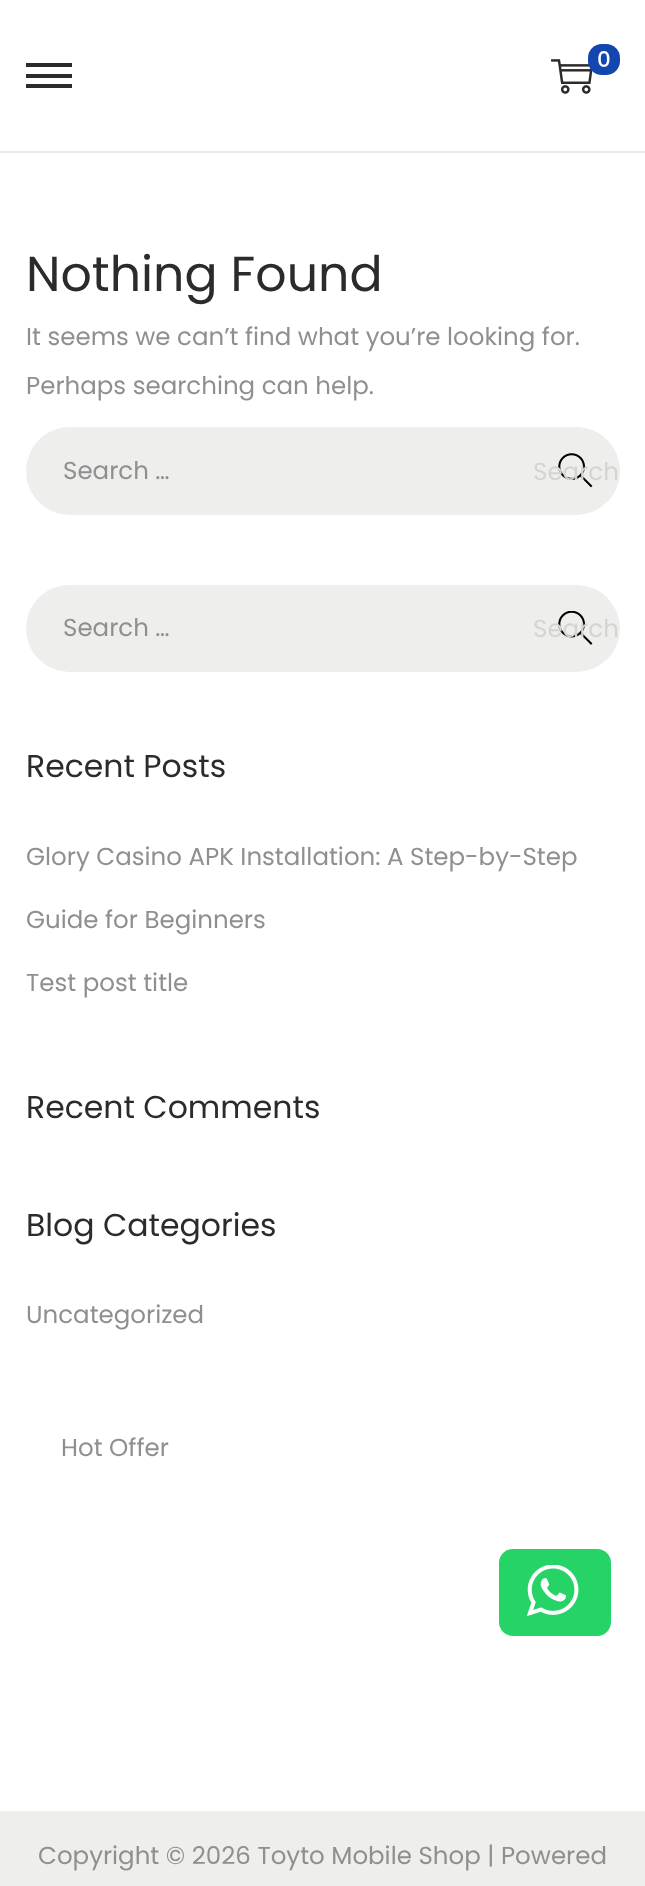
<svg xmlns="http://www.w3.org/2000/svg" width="645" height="1886">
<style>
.a{font:bold 21px Poppins;fill:#fff}
.b{font:49px Poppins;fill:#2b2b2b}
.c{font:24.5px Poppins;fill:#8f8f8f}
.d{font:24.5px Poppins;fill:#d4d4d2}
.e{font:31.5px Poppins;fill:#2b2b2b}
</style>
<rect width="100%" height="100%" fill="#fff"/>
<path fill="#eaeaea" d="M0 151h645v2H0z"/>
<image href="1.png" x="551" y="59" width="42" height="35"/>
<rect fill="#1346af" x="588" y="44" width="32" height="31" rx="14"/>
<path fill="#2b2b2b" d="M26 74h46v4H26z"/>
<path fill="#2b2b2b" d="M26 63h46v4H26z"/>
<path fill="#2b2b2b" d="M26 84h46v4H26z"/>
<rect fill="#eeeeec" x="26" y="427" width="594" height="88" rx="44"/>
<image href="2.png" x="558" y="453" width="35" height="35"/>
<rect fill="#eeeeec" x="26" y="585" width="594" height="87" rx="43.5"/>
<image href="3.png" x="558" y="611" width="35" height="34"/>
<rect fill="#25d366" x="499" y="1549" width="112" height="87" rx="14"/>
<image href="4.png" x="527" y="1565" width="52" height="51"/>
<path fill="#eeeeec" d="M0 1811h645v75H0z"/>
<text class="a" x="597" y="67">0</text>
<text class="b" x="26" y="291">Nothing Found</text>
<text class="c" x="26" y="345">It seems we can’t find what you’re looking for.</text>
<text class="c" x="26" y="394">Perhaps searching can help.</text>
<text class="c" x="63" y="479">Search …</text>
<text class="d" x="533" y="480">Search</text>
<text class="c" x="63" y="636">Search …</text>
<text class="d" x="533" y="637">Search</text>
<text class="e" x="26" y="777">Recent Posts</text>
<text class="c" x="26" y="865">Glory Casino APK Installation: A Step-by-Step</text>
<text class="c" x="26" y="928">Guide for Beginners</text>
<text class="c" x="26" y="991">Test post title</text>
<text class="e" x="26" y="1118">Recent Comments</text>
<text class="e" x="26" y="1236">Blog Categories</text>
<text class="c" x="26" y="1323">Uncategorized</text>
<text class="c" x="61" y="1456">Hot Offer</text>
<text class="c" x="38" y="1864">Copyright © 2026 Toyto Mobile Shop | Powered</text>
</svg>
